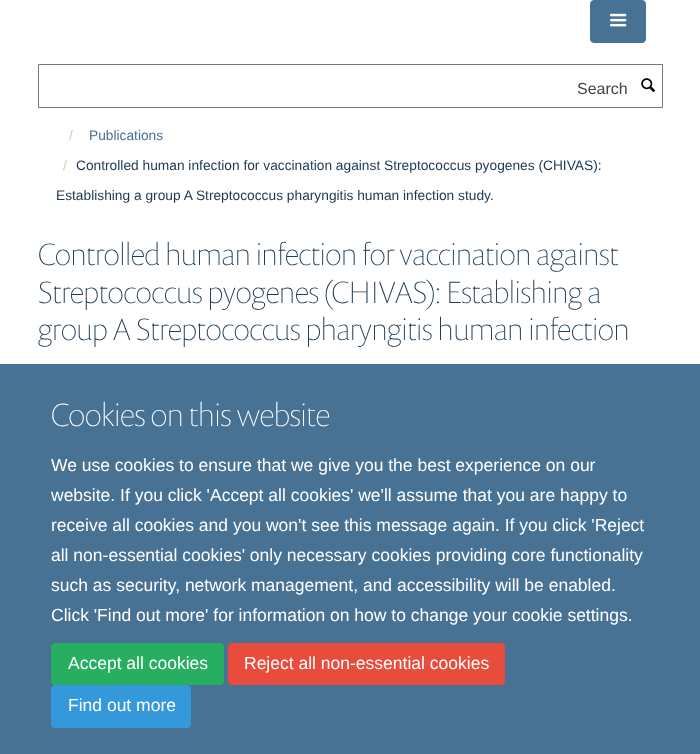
<svg xmlns="http://www.w3.org/2000/svg" width="700" height="754">
<style>
.a{font:16px Liberation Sans;fill:#444}
.b{font:13.75px Liberation Sans;fill:#ccc}
.c{font:13.75px Liberation Sans;fill:#487294}
.d{font:13.75px Liberation Sans;fill:#1d3850}
.e{font:100 31.25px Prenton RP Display;fill:#203e58}
.f{font:100 32.5px Prenton RP Display;fill:#fff}
.g{font:17.5px Liberation Sans;fill:#fff}
</style>
<rect width="100%" height="100%" fill="#fff"/>
<rect fill="#487294" stroke="#487294" x="590.5" y="0.5" width="55" height="42" rx="3.5"/>
<image href="1.png" x="610" y="13" width="17" height="14"/>
<path fill="none" stroke="#777" d="M38.5 64.5h624v43H38.5z"/>
<image href="2.png" x="641" y="78" width="14" height="14"/>
<path fill="#487294" d="M0 364h700v390H0z"/>
<rect fill="#27ae60" stroke="#27ae60" x="51.5" y="643.5" width="172" height="41" rx="3.5"/>
<rect fill="#e74c3c" stroke="#e74c3c" x="228.5" y="643.5" width="276" height="41" rx="3.5"/>
<rect fill="#3498db" stroke="#3498db" x="51.5" y="685.5" width="139" height="42" rx="3.5"/>
<text class="a" x="577" y="94">Search</text>
<text class="b" x="69" y="140">/</text>
<text class="c" x="89" y="140">Publications</text>
<text class="b" x="63" y="170">/</text>
<text class="d" x="76" y="170">Controlled human infection for vaccination against Streptococcus pyogenes (CHIVAS):</text>
<text class="d" x="56" y="200">Establishing a group A Streptococcus pharyngitis human infection study.</text>
<text class="e" x="38" y="265">Controlled human infection for vaccination against</text>
<text class="e" x="38" y="303">Streptococcus pyogenes (CHIVAS): Establishing a</text>
<text class="e" x="38" y="340">group A Streptococcus pharyngitis human infection</text>
<text class="f" x="51" y="426">Cookies on this website</text>
<text class="g" x="51" y="471">We use cookies to ensure that we give you the best experience on our</text>
<text class="g" x="51" y="501">website. If you click 'Accept all cookies' we'll assume that you are happy to</text>
<text class="g" x="51" y="531">receive all cookies and you won't see this message again. If you click 'Reject</text>
<text class="g" x="51" y="561">all non-essential cookies' only necessary cookies providing core functionality</text>
<text class="g" x="51" y="591">such as security, network management, and accessibility will be enabled.</text>
<text class="g" x="51" y="621">Click 'Find out more' for information on how to change your cookie settings.</text>
<text class="g" x="68" y="669">Accept all cookies</text>
<text class="g" x="244" y="669">Reject all non-essential cookies</text>
<text class="g" x="68" y="711">Find out more</text>
</svg>
